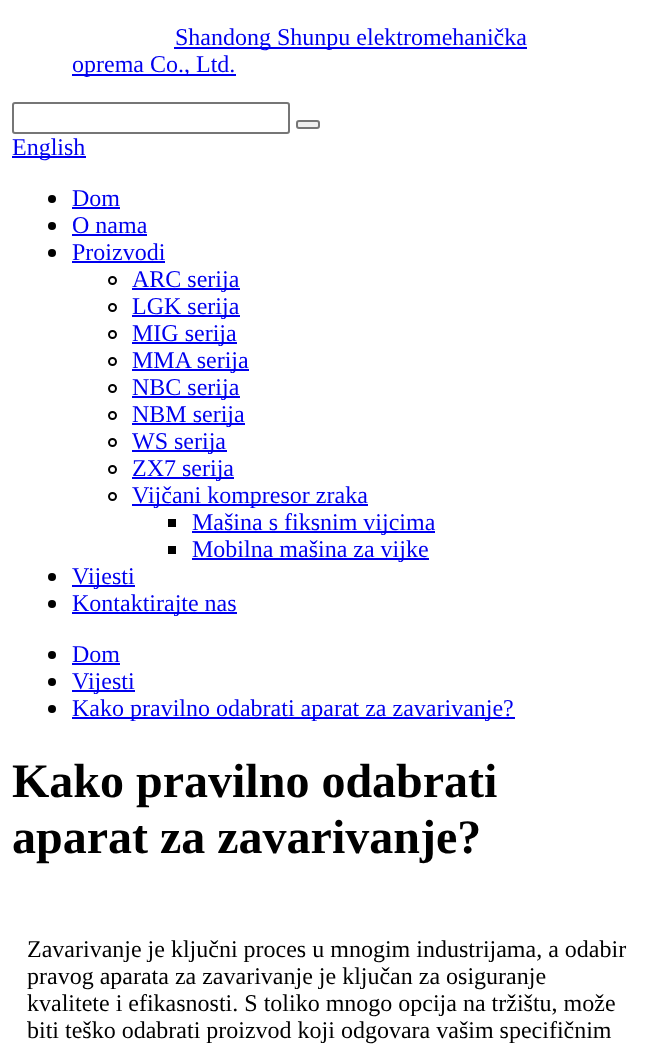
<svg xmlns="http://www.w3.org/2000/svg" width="656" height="1060">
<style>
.a{font:24px Liberation Serif;fill:#00e}
.b{font:bold 48px Liberation Serif;fill:#000}
.c{font:24px Liberation Serif;fill:#000}
</style>
<rect width="100%" height="100%" fill="#fff"/>
<path fill="#00e" d="M174 47h353v2H174z"/>
<path fill="#00e" d="M72 74h164v2H72z"/>
<rect fill="none" stroke="#767676" stroke-width="2" x="13" y="103" width="276" height="30" rx="2"/>
<rect fill="#efefef" stroke="#767676" stroke-width="2" x="297" y="121" width="22" height="7" rx="2"/>
<path fill="#00e" d="M12 156h74v2H12z"/>
<circle fill="#000" cx="52" cy="199" r="4"/>
<path fill="#00e" d="M72 207h48v2H72z"/>
<circle fill="#000" cx="52" cy="226" r="4"/>
<path fill="#00e" d="M72 234h75v2H72z"/>
<circle fill="#000" cx="52" cy="253" r="4"/>
<path fill="#00e" d="M72 261h93v2H72z"/>
<circle fill="none" stroke="#000" stroke-width="2" cx="112.5" cy="280.5" r="3.5"/>
<path fill="#00e" d="M132 288h108v2H132z"/>
<circle fill="none" stroke="#000" stroke-width="2" cx="112.5" cy="307.5" r="3.5"/>
<path fill="#00e" d="M132 315h108v2H132z"/>
<circle fill="none" stroke="#000" stroke-width="2" cx="112.5" cy="334.5" r="3.5"/>
<path fill="#00e" d="M132 342h105v2H132z"/>
<circle fill="none" stroke="#000" stroke-width="2" cx="112.5" cy="361.5" r="3.5"/>
<path fill="#00e" d="M132 369h117v2H132z"/>
<circle fill="none" stroke="#000" stroke-width="2" cx="112.5" cy="388.5" r="3.5"/>
<path fill="#00e" d="M132 396h108v2H132z"/>
<circle fill="none" stroke="#000" stroke-width="2" cx="112.5" cy="415.5" r="3.5"/>
<path fill="#00e" d="M132 423h113v2H132z"/>
<circle fill="none" stroke="#000" stroke-width="2" cx="112.5" cy="442.5" r="3.5"/>
<path fill="#00e" d="M132 450h95v2H132z"/>
<circle fill="none" stroke="#000" stroke-width="2" cx="112.5" cy="469.5" r="3.5"/>
<path fill="#00e" d="M132 477h102v2H132z"/>
<circle fill="none" stroke="#000" stroke-width="2" cx="112.5" cy="496.5" r="3.5"/>
<path fill="#00e" d="M132 504h236v2H132z"/>
<path fill="#000" d="M168 519h8v8H168z"/>
<path fill="#00e" d="M192 531h243v2H192z"/>
<path fill="#000" d="M168 546h8v8H168z"/>
<path fill="#00e" d="M192 558h237v2H192z"/>
<circle fill="#000" cx="52" cy="577" r="4"/>
<path fill="#00e" d="M72 585h63v2H72z"/>
<circle fill="#000" cx="52" cy="604" r="4"/>
<path fill="#00e" d="M72 612h165v2H72z"/>
<circle fill="#000" cx="52" cy="655" r="4"/>
<path fill="#00e" d="M72 663h48v2H72z"/>
<circle fill="#000" cx="52" cy="682" r="4"/>
<path fill="#00e" d="M72 690h63v2H72z"/>
<circle fill="#000" cx="52" cy="709" r="4"/>
<path fill="#00e" d="M72 717h443v2H72z"/>
<text class="a" x="175" y="45">Shandong Shunpu elektromehanička</text>
<text class="a" x="72" y="72">oprema Co., Ltd.</text>
<text class="a" x="12" y="155">English</text>
<text class="a" x="72" y="206">Dom</text>
<text class="a" x="72" y="233">O nama</text>
<text class="a" x="72" y="260">Proizvodi</text>
<text class="a" x="132" y="287">ARC serija</text>
<text class="a" x="132" y="314">LGK serija</text>
<text class="a" x="132" y="341">MIG serija</text>
<text class="a" x="132" y="368">MMA serija</text>
<text class="a" x="132" y="395">NBC serija</text>
<text class="a" x="132" y="422">NBM serija</text>
<text class="a" x="132" y="449">WS serija</text>
<text class="a" x="132" y="476">ZX7 serija</text>
<text class="a" x="132" y="503">Vijčani kompresor zraka</text>
<text class="a" x="192" y="530">Mašina s fiksnim vijcima</text>
<text class="a" x="192" y="557">Mobilna mašina za vijke</text>
<text class="a" x="72" y="584">Vijesti</text>
<text class="a" x="72" y="611">Kontaktirajte nas</text>
<text class="a" x="72" y="662">Dom</text>
<text class="a" x="72" y="689">Vijesti</text>
<text class="a" x="72" y="716">Kako pravilno odabrati aparat za zavarivanje?</text>
<text class="b" x="12" y="797">Kako pravilno odabrati</text>
<text class="b" x="12" y="853">aparat za zavarivanje?</text>
<text class="c" x="27" y="957">Zavarivanje je ključni proces u mnogim industrijama, a odabir</text>
<text class="c" x="27" y="984">pravog aparata za zavarivanje je ključan za osiguranje</text>
<text class="c" x="27" y="1011">kvalitete i efikasnosti. S toliko mnogo opcija na tržištu, može</text>
<text class="c" x="27" y="1038">biti teško odabrati proizvod koji odgovara vašim specifičnim</text>
</svg>
